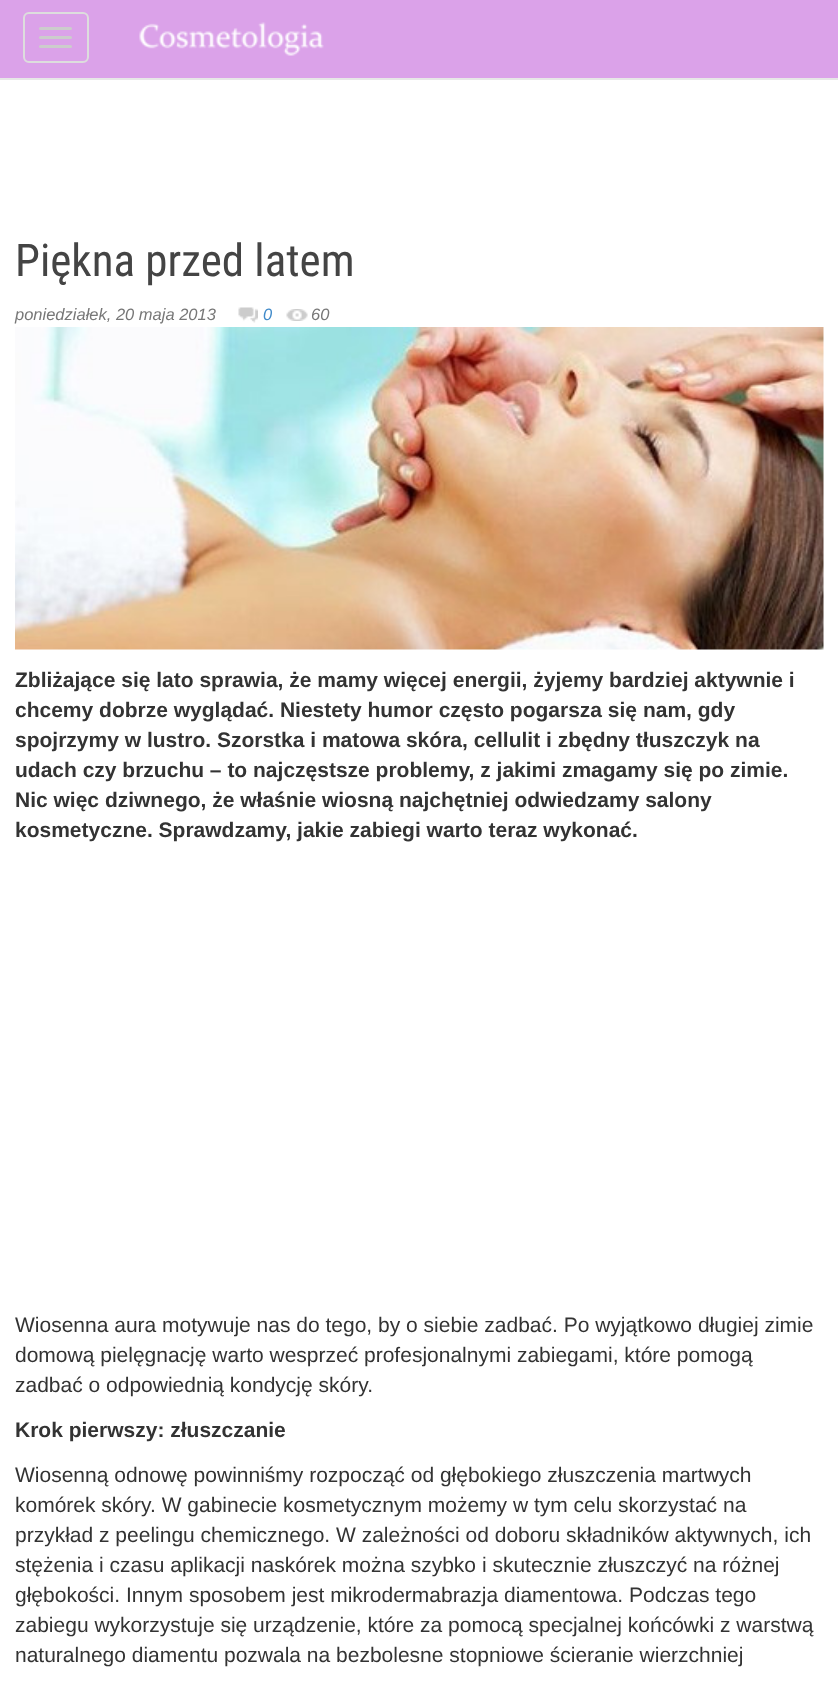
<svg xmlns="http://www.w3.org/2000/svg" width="838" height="1684">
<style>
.a{font:45px Roboto Condensed;fill:#444}
.b{font:italic 16.5px Liberation Sans;fill:#777}
.c{font:italic 16.5px Liberation Sans;fill:#428bca}
.d{font:bold 21px Liberation Sans;fill:#333}
.e{font:21px Liberation Sans;fill:#333}
</style>
<rect width="100%" height="100%" fill="#fff"/>
<path fill="#dba2e9" d="M0 0h838v78H0z"/>
<path fill="#e7e7e7" d="M0 78h838v2H0z"/>
<rect fill="none" stroke="#ddd" stroke-width="2" x="24" y="13" width="64" height="49" rx="5"/>
<rect fill="#ccc" x="39" y="27" width="33" height="3" rx="1.5"/>
<rect fill="#ccc" x="39" y="36" width="33" height="3" rx="1.5"/>
<rect fill="#ccc" x="39" y="45" width="33" height="3" rx="1.5"/>
<image href="1.png" x="139" y="22" width="185" height="34"/>
<image href="2.png" x="238" y="307" width="20" height="16"/>
<image href="3.png" x="286" y="309" width="22" height="12"/>
<image href="4.png" x="15" y="327" width="809" height="323"/>
<text class="a" x="15" y="276">Piękna przed latem</text>
<text class="b" x="15" y="320">poniedziałek, 20 maja 2013</text>
<text class="c" x="263" y="320">0</text>
<text class="b" x="311" y="320">60</text>
<text class="d" x="15" y="687">Zbliżające się lato sprawia, że mamy więcej energii, żyjemy bardziej aktywnie i</text>
<text class="d" x="15" y="717">chcemy dobrze wyglądać. Niestety humor często pogarsza się nam, gdy</text>
<text class="d" x="15" y="747">spojrzymy w lustro. Szorstka i matowa skóra, cellulit i zbędny tłuszczyk na</text>
<text class="d" x="15" y="777">udach czy brzuchu – to najczęstsze problemy, z jakimi zmagamy się po zimie.</text>
<text class="d" x="15" y="807">Nic więc dziwnego, że właśnie wiosną najchętniej odwiedzamy salony</text>
<text class="d" x="15" y="837">kosmetyczne. Sprawdzamy, jakie zabiegi warto teraz wykonać.</text>
<text class="e" x="15" y="1332">Wiosenna aura motywuje nas do tego, by o siebie zadbać. Po wyjątkowo długiej zimie</text>
<text class="e" x="15" y="1362">domową pielęgnację warto wesprzeć profesjonalnymi zabiegami, które pomogą</text>
<text class="e" x="15" y="1392">zadbać o odpowiednią kondycję skóry.</text>
<text class="d" x="15" y="1437">Krok pierwszy: złuszczanie</text>
<text class="e" x="15" y="1482">Wiosenną odnowę powinniśmy rozpocząć od głębokiego złuszczenia martwych</text>
<text class="e" x="15" y="1512">komórek skóry. W gabinecie kosmetycznym możemy w tym celu skorzystać na</text>
<text class="e" x="15" y="1542">przykład z peelingu chemicznego. W zależności od doboru składników aktywnych, ich</text>
<text class="e" x="15" y="1572">stężenia i czasu aplikacji naskórek można szybko i skutecznie złuszczyć na różnej</text>
<text class="e" x="15" y="1602">głębokości. Innym sposobem jest mikrodermabrazja diamentowa. Podczas tego</text>
<text class="e" x="15" y="1632">zabiegu wykorzystuje się urządzenie, które za pomocą specjalnej końcówki z warstwą</text>
<text class="e" x="15" y="1662">naturalnego diamentu pozwala na bezbolesne stopniowe ścieranie wierzchniej</text>
</svg>
